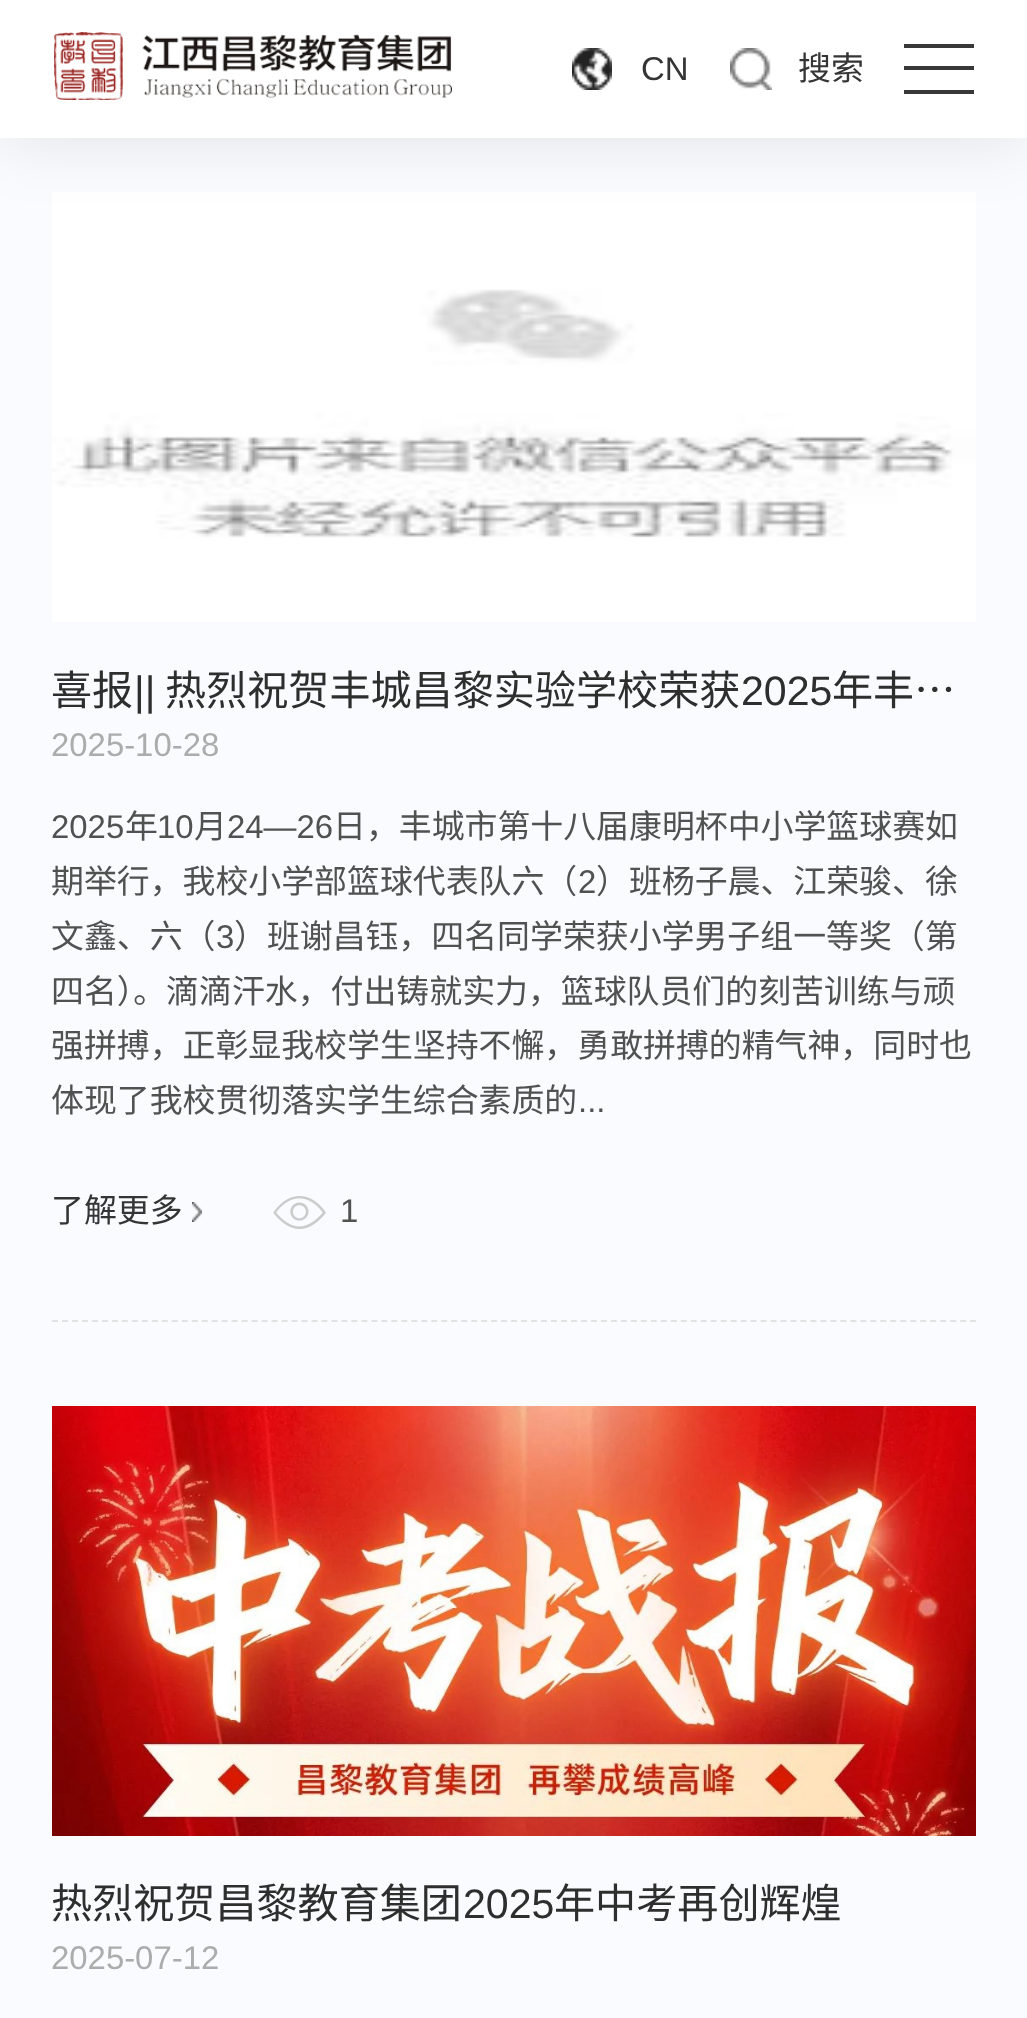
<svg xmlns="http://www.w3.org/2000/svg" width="1027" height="2018">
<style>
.a{font:32.9px Liberation Sans;fill:#353535}
.b{font:32.9px Noto Sans CJK SC;fill:#353535}
.c{font:41.1px Noto Sans CJK SC;fill:#2e2e2e}
.d{font:41.1px Liberation Sans;fill:#2e2e2e}
.e{font:32.9px Liberation Sans;fill:#acacac}
.f{font:32.9px Liberation Sans;fill:#515151}
.g{font:32.9px Noto Sans CJK SC;fill:#515151}
</style>
<rect width="100%" height="100%" fill="#f9fbfe"/>
<image href="4.png" x="52" y="192" width="924" height="430"/>
<path fill="#0000001a" filter="blur(34.5px)" d="M0 0h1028v138H0z"/>
<path fill="#fff" d="M0 0h1027v138H0z"/>
<image href="1.png" x="54" y="32" width="398" height="68"/>
<image href="2.png" x="572" y="48" width="40" height="42"/>
<image href="3.png" x="730" y="48" width="42" height="42"/>
<path fill="#383838" d="M904 44h70v4H904z"/>
<path fill="#383838" d="M904 66h70v4H904z"/>
<path fill="#383838" d="M904 90h70v4H904z"/>
<path fill="none" stroke="#e2e2e2" stroke-width="2" stroke-dasharray="6 3.98" d="M52 1321h924"/>
<image href="5.png" x="192" y="1202" width="10" height="20"/>
<image href="6.png" x="273" y="1196" width="53" height="33"/>
<image href="7.png" x="52" y="1406" width="924" height="430"/>
<text class="a" x="641" y="80">CN</text>
<text class="b" x="798" y="80">搜索</text>
<text class="c" x="51" y="705">喜报</text>
<text class="d" x="134" y="705">||</text>
<text class="c" x="165" y="705">热烈祝贺丰城昌黎实验学校荣获</text>
<text class="d" x="741" y="705">2025</text>
<text class="c" x="832" y="705">年丰…</text>
<text class="e" x="51" y="756">2025-10-28</text>
<text class="f" x="51" y="838">2025</text>
<text class="g" x="125" y="838">年</text>
<text class="f" x="157" y="838">10</text>
<text class="g" x="194" y="838">月</text>
<text class="f" x="227" y="838">24—26</text>
<text class="g" x="333" y="838">日，丰城市第十八届康明杯中小学篮球赛如</text>
<text class="g" x="51" y="893">期举行，我校小学部篮球代表队六（</text>
<text class="f" x="578" y="893">2</text>
<text class="g" x="596" y="893">）班杨子晨、江荣骏、徐</text>
<text class="g" x="51" y="948">文鑫、六（</text>
<text class="f" x="216" y="948">3</text>
<text class="g" x="234" y="948">）班谢昌钰，四名同学荣获小学男子组一等奖（第</text>
<text class="g" x="51" y="1003">四名）。滴滴汗水，付出铸就实力，篮球队员们的刻苦训练与顽</text>
<text class="g" x="51" y="1057">强拼搏，正彰显我校学生坚持不懈，勇敢拼搏的精气神，同时也</text>
<text class="g" x="51" y="1112">体现了我校贯彻落实学生综合素质的</text>
<text class="f" x="578" y="1112">...</text>
<text class="b" x="51" y="1222">了解更多</text>
<text class="f" x="340" y="1222">1</text>
<text class="c" x="51" y="1918">热烈祝贺昌黎教育集团</text>
<text class="d" x="463" y="1918">2025</text>
<text class="c" x="554" y="1918">年中考再创辉煌</text>
<text class="e" x="51" y="1969">2025-07-12</text>
</svg>
